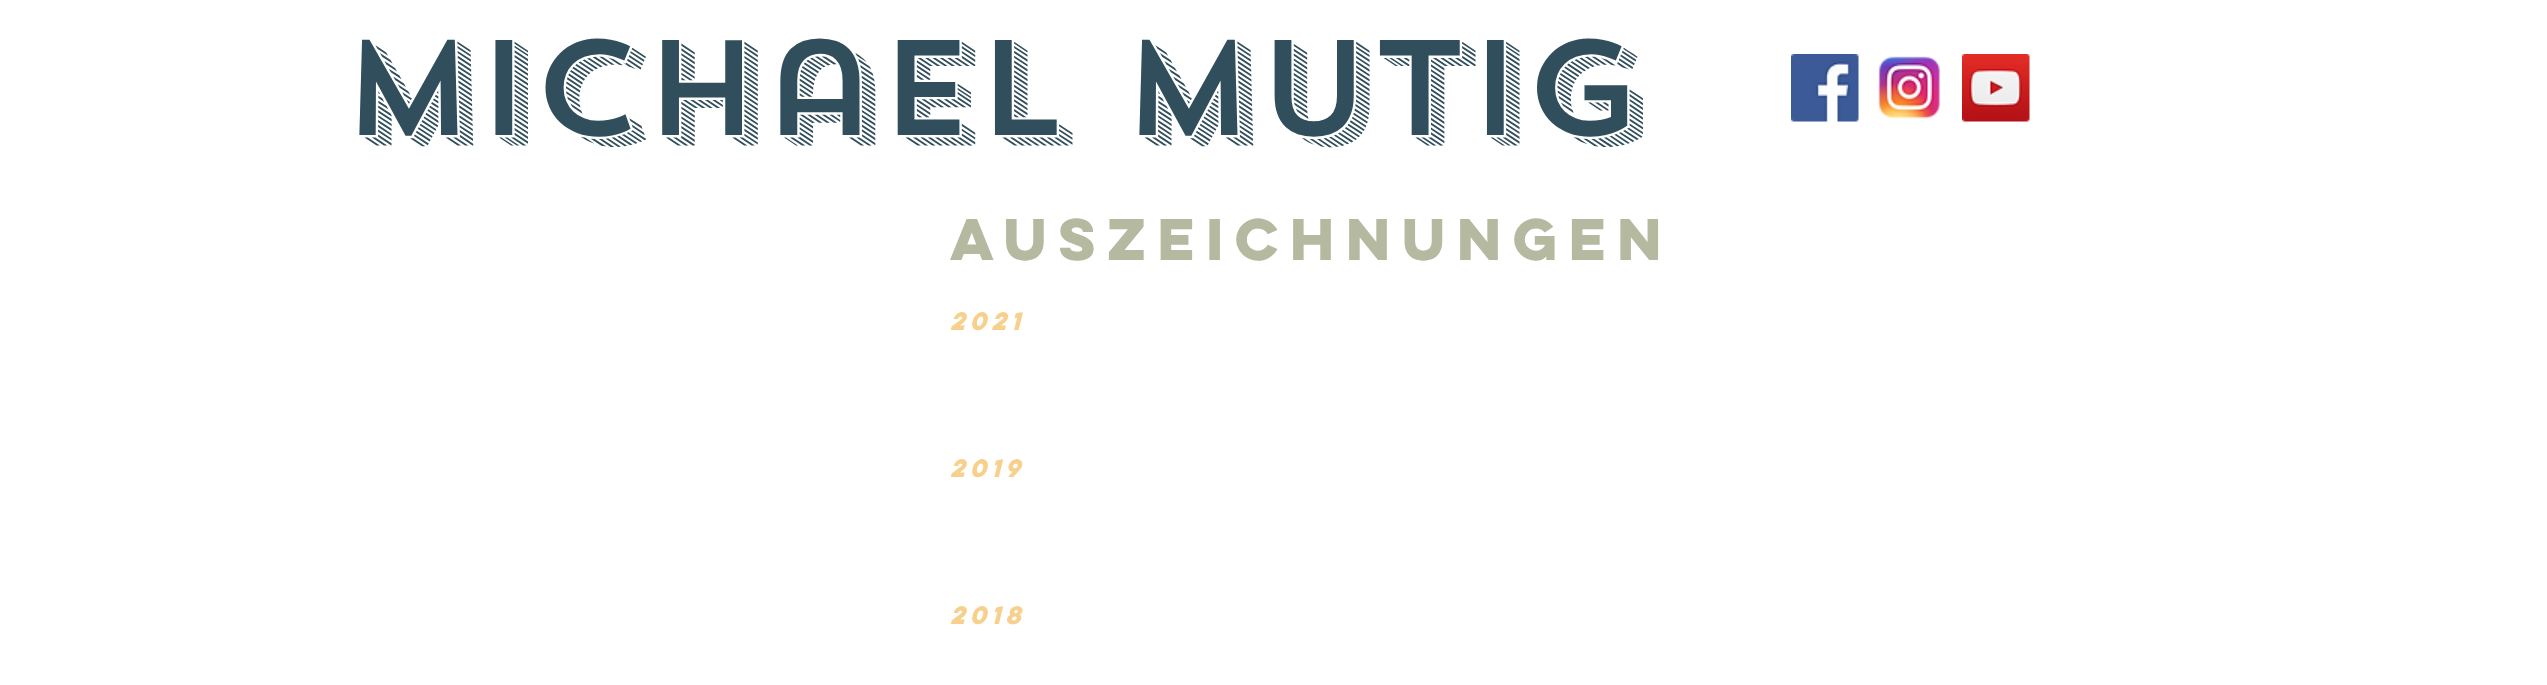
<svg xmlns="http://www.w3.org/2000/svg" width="2547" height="685">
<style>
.a{font:500 135px 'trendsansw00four';fill:#314e5d}
.b{font:bold 52.5px 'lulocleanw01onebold';fill:#b4b99f}
.c{font:italic bold 22.5px 'lulocleanw01onebold';fill:#f8d08e}
</style>
<rect width="100%" height="100%" fill="#fff"/>
<image href="1.png" x="1791" y="54" width="68" height="68"/>
<image href="2.png" x="1878" y="56" width="62" height="63"/>
<image href="3.png" x="1962" y="54" width="68" height="68"/>
<text class="a" x="341" y="135">Michael Mutig</text>
<text class="b" x="950" y="260">Auszeichnungen</text>
<text class="c" x="950" y="330">2021</text>
<text class="c" x="950" y="477">2019</text>
<text class="c" x="950" y="624">2018</text>
</svg>
